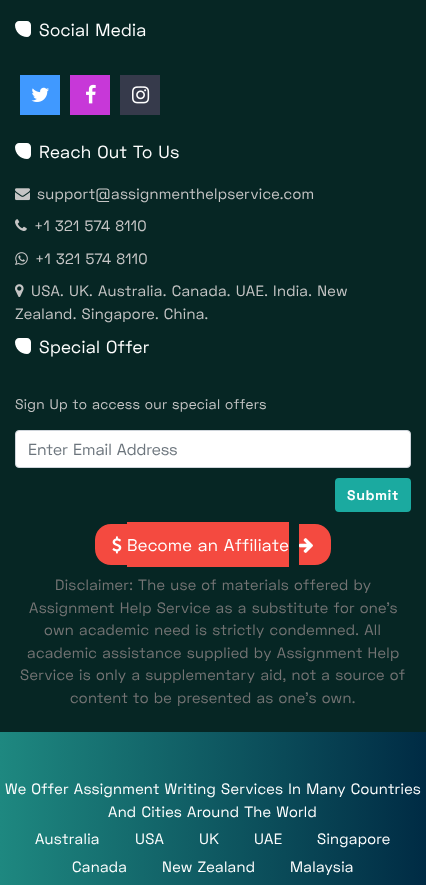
<svg xmlns="http://www.w3.org/2000/svg" width="426" height="885">
<style>
.a{font:17.5px Space Grotesk;letter-spacing:0.3px;fill:#fff}
.b{font:15px Space Grotesk;letter-spacing:0.3px;fill:#c5c5c5}
.c{font:14px Space Grotesk;letter-spacing:0.3px;fill:#c5c5c5}
.d{font:16px Space Grotesk;fill:#6c757d}
.e{font:bold 14px Space Grotesk;letter-spacing:1px;fill:#fff}
.f{font:17px Space Grotesk;letter-spacing:0.3px;fill:#fff}
.g{font:15px Space Grotesk;letter-spacing:0.3px;fill:#747474}
.h{font:15px Space Grotesk;letter-spacing:0.3px;fill:#fff}
</style>
<defs>
<linearGradient id="g1" gradientUnits="userSpaceOnUse" x1="0" y1="820" x2="426" y2="820"><stop offset="0" stop-color="#1e8880"/><stop offset="1" stop-color="#002b44"/></linearGradient>
</defs>
<rect width="100%" height="100%" fill="#062624"/>
<path fill="#fff" d="M19 21h8c2 0 4 2 4 4v8c0 2-2 4-4 4c-6.5 0-12-5.5-12-12c0-2 2-4 4-4z"/>
<path fill="#4099ff" d="M20 75h40v40H20z"/>
<image href="1.png" x="31" y="87" width="18" height="15"/>
<path fill="#c738d8" d="M70 75h40v40H70z"/>
<image href="2.png" x="86" y="84" width="10" height="20"/>
<path fill="#363a4b" d="M120 75h40v40H120z"/>
<image href="3.png" x="132" y="86" width="18" height="18"/>
<path fill="#fff" d="M19 143h8c2 0 4 2 4 4v8c0 2-2 4-4 4c-6.5 0-12-5.5-12-12c0-2 2-4 4-4z"/>
<image href="4.png" x="15" y="188" width="15" height="13"/>
<image href="5.png" x="15" y="219" width="12" height="12"/>
<image href="6.png" x="15" y="252" width="13" height="13"/>
<image href="7.png" x="15" y="284" width="9" height="13"/>
<path fill="#fff" d="M19 338h8c2 0 4 2 4 4v8c0 2-2 4-4 4c-6.5 0-12-5.5-12-12c0-2 2-4 4-4z"/>
<rect fill="#fff" stroke="#ced4da" x="15.5" y="430.5" width="395" height="37" rx="3.5"/>
<rect fill="#1baaa0" stroke="#1baaa0" stroke-width="2" x="336" y="479" width="74" height="32" rx="3"/>
<path fill="#f44a40" d="M111 524h16v41h-16c-9 0-16-7-16-16v-9c0-9 7-16 16-16z"/>
<path fill="#f44a40" d="M127 522h162v45H127z"/>
<path fill="#f44a40" d="M299 524h16c9 0 16 7 16 16v9c0 9-7 16-16 16h-16z"/>
<image href="8.png" x="112" y="536" width="10" height="18"/>
<image href="9.png" x="299" y="538" width="14" height="15"/>
<path fill="url(#g1)" d="M0 732h426v153H0z"/>
<text class="a" x="39" y="36">Social Media</text>
<text class="a" x="39" y="158">Reach Out To Us</text>
<text class="b" x="37" y="199">support@assignmenthelpservice.com</text>
<text class="b" x="34" y="231">+1 321 574 8110</text>
<text class="b" x="35" y="264">+1 321 574 8110</text>
<text class="b" x="31" y="296">USA. UK. Australia. Canada. UAE. India. New</text>
<text class="b" x="15" y="319">Zealand. Singapore. China.</text>
<text class="a" x="39" y="353">Special Offer</text>
<text class="c" x="15" y="409">Sign Up to access our special offers</text>
<text class="d" x="28" y="455">Enter Email Address</text>
<text class="e" x="347" y="500">Submit</text>
<text class="f" x="127" y="551">Become an Affiliate</text>
<text class="g" x="55" y="590">Disclaimer: The use of materials offered by</text>
<text class="g" x="29" y="613">Assignment Help Service as a substitute for one's</text>
<text class="g" x="44" y="635">own academic need is strictly condemned. All</text>
<text class="g" x="27" y="658">academic assistance supplied by Assignment Help</text>
<text class="g" x="20" y="680">Service is only a supplementary aid, not a source of</text>
<text class="g" x="70" y="703">content to be presented as one's own.</text>
<text class="h" x="5" y="794">We Offer Assignment Writing Services In Many Countries</text>
<text class="h" x="108" y="817">And Cities Around The World</text>
<text class="h" x="35" y="844">Australia</text>
<text class="h" x="135" y="844">USA</text>
<text class="h" x="199" y="844">UK</text>
<text class="h" x="254" y="844">UAE</text>
<text class="h" x="317" y="844">Singapore</text>
<text class="h" x="72" y="872">Canada</text>
<text class="h" x="162" y="872">New Zealand</text>
<text class="h" x="290" y="872">Malaysia</text>
</svg>
